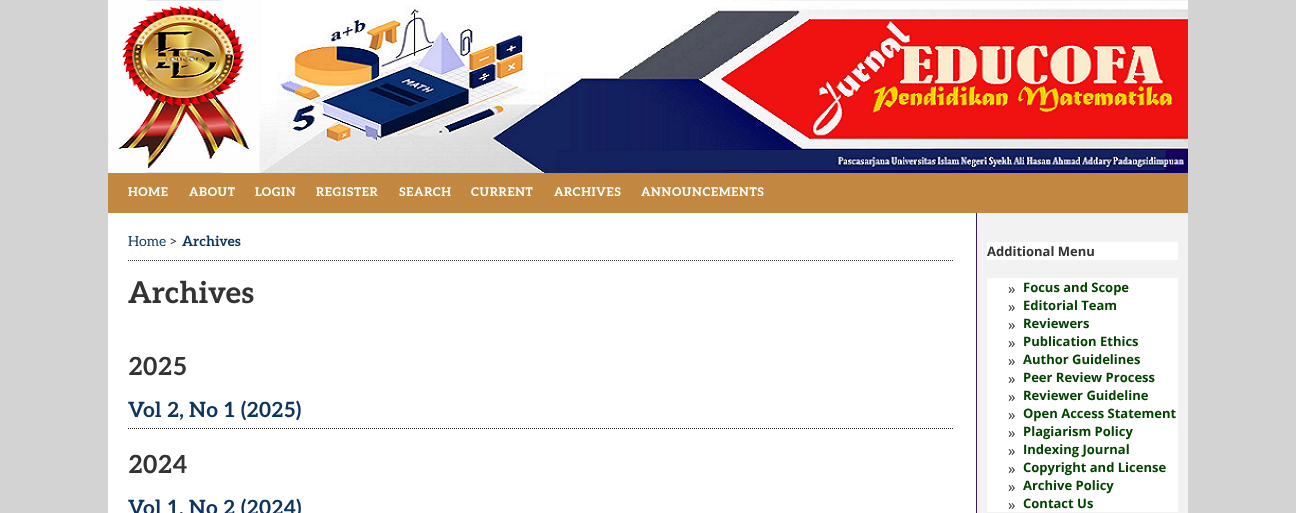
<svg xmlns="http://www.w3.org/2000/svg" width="1296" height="513">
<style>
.a{font:bold 12px Aleo;letter-spacing:0.6px;fill:#fff}
.b{font:14px Aleo;fill:#0d355e}
.c{font:14px Aleo;fill:#333}
.d{font:bold 14px Aleo;fill:#0d355e}
.e{font:bold 30px Aleo;fill:#333}
.f{font:bold 25px Aleo;fill:#333}
.g{font:bold 21px Aleo;fill:#0d355e}
.h{font:bold 13px Open Sans;fill:#333}
.i{font:15px Open Sans;fill:#333}
.j{font:bold 13px Open Sans;fill:#040}
</style>
<rect width="100%" height="100%" fill="#d3d3d3"/>
<image href="1.png" x="108" y="0" width="1080" height="173"/>
<path fill="#fff" d="M108 213h868v300H108z"/>
<path fill="#c28841" d="M108 173h1080v40H108z"/>
<path fill="none" stroke="#333" stroke-dasharray="1 1" d="M128 260.5h825"/>
<path fill="none" stroke="#222" stroke-dasharray="1 1" d="M128 428.5h825"/>
<path fill="#f2f2f2" d="M977 213h211v300H977z"/>
<path fill="#311b63" d="M976 213h1v300H976z"/>
<path fill="#fff" d="M987 242h191v18H987z"/>
<path fill="#fff" d="M987 278h191v234H987z"/>
<text class="a" x="128" y="196">HOME</text>
<text class="a" x="189" y="196">ABOUT</text>
<text class="a" x="255" y="196">LOGIN</text>
<text class="a" x="316" y="196">REGISTER</text>
<text class="a" x="399" y="196">SEARCH</text>
<text class="a" x="471" y="196">CURRENT</text>
<text class="a" x="554" y="196">ARCHIVES</text>
<text class="a" x="641" y="196">ANNOUNCEMENTS</text>
<text class="b" x="128" y="246">Home</text>
<text class="c" x="170" y="246">&gt;</text>
<text class="d" x="182" y="246">Archives</text>
<text class="e" x="128" y="303">Archives</text>
<text class="f" x="128" y="375">2025</text>
<text class="g" x="128" y="417">Vol 2, No 1 (2025)</text>
<text class="f" x="128" y="473">2024</text>
<text class="g" x="128" y="515">Vol 1, No 2 (2024)</text>
<text class="h" x="987" y="256">Additional Menu</text>
<text class="i" x="1008" y="294">»</text>
<text class="j" x="1023" y="292">Focus and Scope</text>
<text class="i" x="1008" y="312">»</text>
<text class="j" x="1023" y="310">Editorial Team</text>
<text class="i" x="1008" y="330">»</text>
<text class="j" x="1023" y="328">Reviewers</text>
<text class="i" x="1008" y="348">»</text>
<text class="j" x="1023" y="346">Publication Ethics</text>
<text class="i" x="1008" y="366">»</text>
<text class="j" x="1023" y="364">Author Guidelines</text>
<text class="i" x="1008" y="384">»</text>
<text class="j" x="1023" y="382">Peer Review Process</text>
<text class="i" x="1008" y="402">»</text>
<text class="j" x="1023" y="400">Reviewer Guideline</text>
<text class="i" x="1008" y="420">»</text>
<text class="j" x="1023" y="418">Open Access Statement</text>
<text class="i" x="1008" y="438">»</text>
<text class="j" x="1023" y="436">Plagiarism Policy</text>
<text class="i" x="1008" y="456">»</text>
<text class="j" x="1023" y="454">Indexing Journal</text>
<text class="i" x="1008" y="474">»</text>
<text class="j" x="1023" y="472">Copyright and License</text>
<text class="i" x="1008" y="492">»</text>
<text class="j" x="1023" y="490">Archive Policy</text>
<text class="i" x="1008" y="510">»</text>
<text class="j" x="1023" y="508">Contact Us</text>
</svg>
